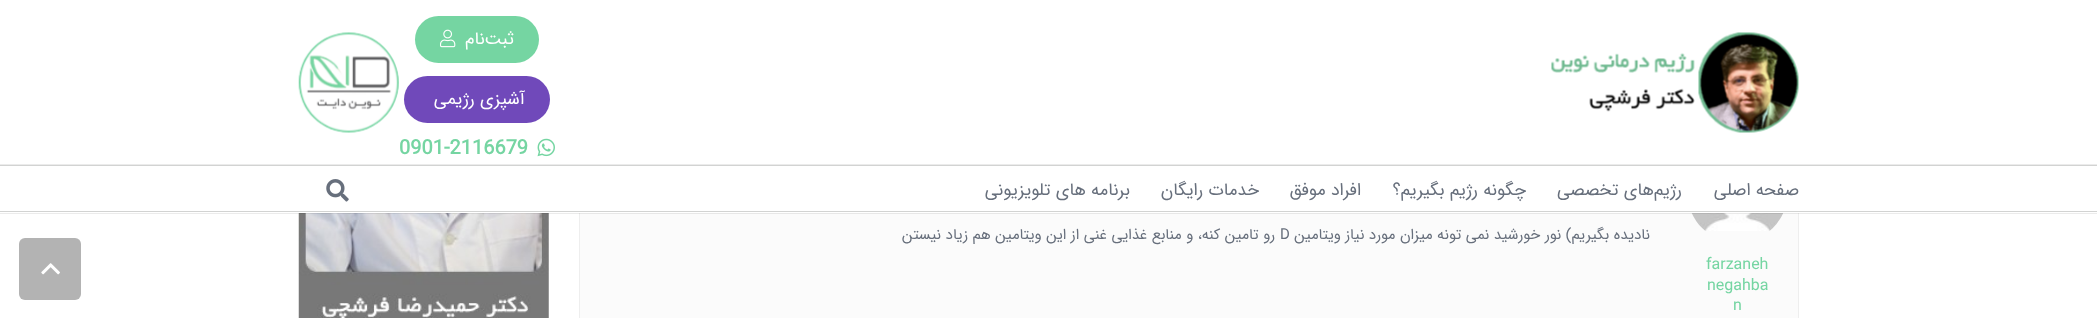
<svg xmlns="http://www.w3.org/2000/svg" width="2097" height="318">
<style>
.a{font:17.5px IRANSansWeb;direction:rtl;fill:#fff}
.b{font:bold 20px IRANSansWeb;fill:#75d5a2}
.c{font:17.5px IRANSansWeb;direction:rtl;fill:#676f7c}
.d{font:15px IRANSansWeb;direction:rtl;fill:#676f7c}
.e{font:15px IRANSansWeb;fill:#676f7c}
.f{font:16px IRANSansWeb;fill:#75d5a2}
</style>
<rect width="100%" height="100%" fill="#fff"/>
<path fill="none" stroke="#eee" d="M579.5 28.5h1219v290H579.5z"/>
<path fill="#fff" d="M579 28h1220v136H579z"/>
<path fill="#ebebeb" d="M0 164h2097v1H0z"/>
<image href="1.png" x="1551" y="32" width="249" height="101"/>
<rect fill="#75d5a2" x="415" y="16" width="124" height="47" rx="23.5"/>
<image href="2.png" x="440" y="29" width="16" height="19"/>
<rect fill="#7049ba" x="404" y="76" width="146" height="47" rx="23.5"/>
<image href="3.png" x="537" y="138" width="18" height="19"/>
<image href="4.png" x="298" y="32" width="101" height="101"/>
<path fill="#fbfbfb" d="M580 213h1218v105H580z"/>
<image href="6.png" x="1691" y="213" width="93" height="18"/>
<image href="7.png" x="298" y="213" width="251" height="105"/>
<path fill="#00000014" d="M0 212v2h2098v-48v46z"/>
<path fill="#fff" d="M0 166h2097v47H0z"/>
<path fill="#d2d3d2" d="M0 165h2097v1H0z"/>
<path fill="#d2d3d2" d="M0 211h2097v1H0z"/>
<image href="5.png" x="326" y="179" width="23" height="23"/>
<rect fill="#b3b3b3" x="19" y="238" width="62" height="62" rx="6"/>
<image href="8.png" x="41" y="263" width="19" height="12"/>
<text class="a" x="514" y="44">ثبت‌نام</text>
<text class="a" x="525" y="104">آشپزی رژیمی</text>
<text class="b" x="399" y="154">0901-2116679</text>
<text class="c" x="1799" y="195">صفحه اصلی</text>
<text class="c" x="1682" y="195">رژیم‌های تخصصی</text>
<text class="c" x="1526" y="195">چگونه رژیم بگیریم؟</text>
<text class="c" x="1361" y="195">افراد موفق</text>
<text class="c" x="1259" y="195">خدمات رایگان</text>
<text class="c" x="1130" y="195">برنامه های تلویزیونی</text>
<text class="d" x="1650" y="239">نادیده بگیریم) نور خورشید نمی تونه میزان مورد نیاز ویتامین</text>
<text class="e" x="1280" y="239">D</text>
<text class="d" x="1275" y="239">رو تامین کنه، و منابع غذایی غنی از این ویتامین هم زیاد نیستن</text>
<text class="f" x="1706" y="269">farzaneh</text>
<text class="f" x="1707" y="290">negahba</text>
<text class="f" x="1733" y="310">n</text>
</svg>
